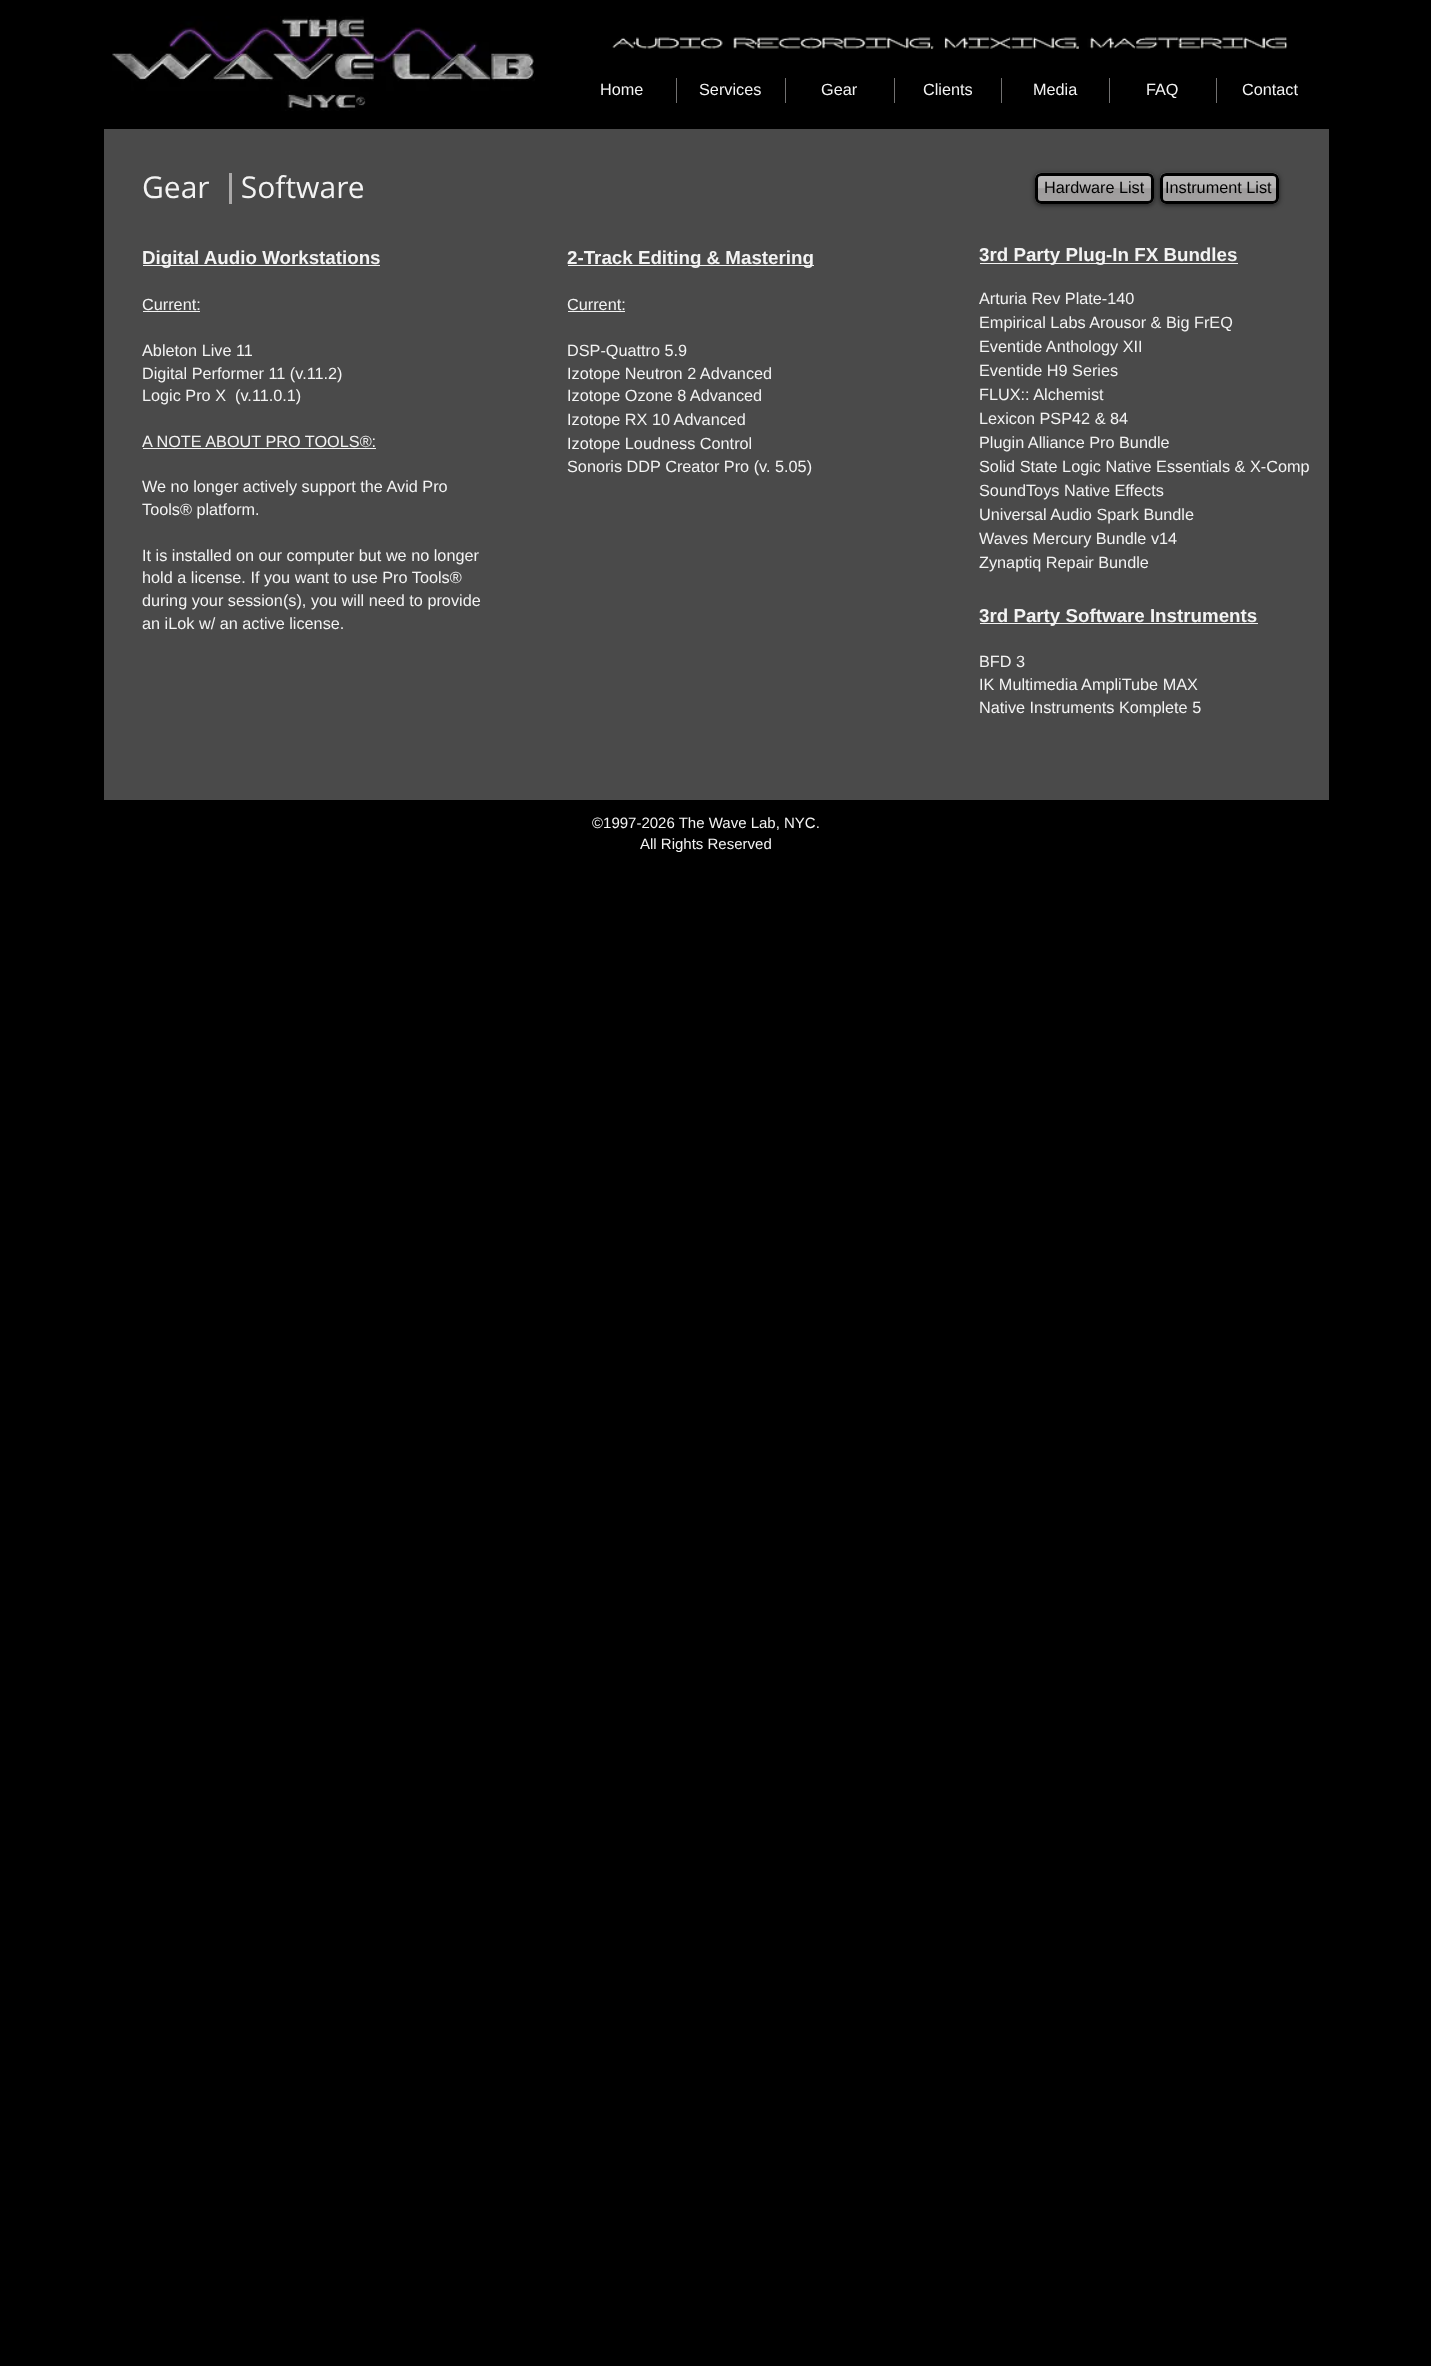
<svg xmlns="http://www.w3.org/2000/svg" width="1431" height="2366">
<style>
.a{font:16.25px Liberation Sans;fill:#f3f3f3}
.b{font:30px Open Sans;fill:#f3f3f3}
.c{font:16.25px Liberation Sans;fill:#000}
.d{font:bold 18.75px Liberation Sans;fill:#f3f3f3}
.e{font:15px Liberation Sans;fill:#f3f3f3}
</style>
<rect width="100%" height="100%" fill="#000"/>
<image href="1.png" x="112" y="16" width="423" height="95"/>
<image href="2.png" x="612" y="37" width="676" height="13"/>
<path fill="#717070" d="M676 78h1v25H676z"/>
<path fill="#717070" d="M785 78h1v25H785z"/>
<path fill="#717070" d="M894 78h1v25H894z"/>
<path fill="#717070" d="M1001 78h1v25H1001z"/>
<path fill="#717070" d="M1109 78h1v25H1109z"/>
<path fill="#717070" d="M1216 78h1v25H1216z"/>
<path fill="#4a4a4a" d="M104 129h1225v671H104z"/>
<rect fill="#00000099" filter="blur(2.5px)" x="1035" y="174" width="119" height="31" rx="6"/>
<rect fill="#aaa8a8" x="1035" y="173" width="119" height="31" rx="6"/>
<image href="3.png" x="1035" y="172" width="119" height="30"/>
<rect fill="none" stroke="#000" stroke-width="3" x="1036.5" y="174.5" width="116" height="28" rx="4.5"/>
<rect fill="#00000099" filter="blur(2.5px)" x="1160" y="174" width="119" height="31" rx="6"/>
<rect fill="#aaa8a8" x="1160" y="173" width="119" height="31" rx="6"/>
<image href="4.png" x="1160" y="172" width="119" height="30"/>
<rect fill="none" stroke="#000" stroke-width="3" x="1161.5" y="174.5" width="116" height="28" rx="4.5"/>
<path fill="#f3f3f3" d="M143 265h237v1H143z"/>
<path fill="#f3f3f3" d="M143 311h57v1H143z"/>
<path fill="#f3f3f3" d="M143 448h233v1H143z"/>
<path fill="#f3f3f3" d="M568 265h246v1H568z"/>
<path fill="#f3f3f3" d="M568 311h57v1H568z"/>
<path fill="#f3f3f3" d="M980 263h258v1H980z"/>
<path fill="#f3f3f3" d="M980 623h278v1H980z"/>
<text class="a" x="600" y="95">Home</text>
<text class="a" x="699" y="95">Services</text>
<text class="a" x="821" y="95">Gear</text>
<text class="a" x="923" y="95">Clients</text>
<text class="a" x="1033" y="95">Media</text>
<text class="a" x="1146" y="95">FAQ</text>
<text class="a" x="1242" y="95">Contact</text>
<text class="b" xml:space="preserve" x="142" y="198">Gear    Software</text>
<path fill="#aaa8a8" d="M229 173h3v31H229z"/>
<text class="c" x="1044" y="193">Hardware List</text>
<text class="c" x="1165" y="193">Instrument List</text>
<text class="d" x="142" y="264">Digital Audio Workstations</text>
<text class="a" x="142" y="310">Current:</text>
<text class="a" x="142" y="356">Ableton Live 11</text>
<text class="a" x="142" y="379">Digital Performer 11 (v.11.2)</text>
<text class="a" xml:space="preserve" x="142" y="401">Logic Pro X  (v.11.0.1)</text>
<text class="a" x="142" y="447">A NOTE ABOUT PRO TOOLS®:</text>
<text class="a" x="142" y="492">We no longer actively support the Avid Pro</text>
<text class="a" x="142" y="515">Tools® platform.</text>
<text class="a" x="142" y="561">It is installed on our computer but we no longer</text>
<text class="a" x="142" y="583">hold a license. If you want to use Pro Tools®</text>
<text class="a" x="142" y="606">during your session(s), you will need to provide</text>
<text class="a" x="142" y="629">an iLok w/ an active license.</text>
<text class="d" x="567" y="264">2-Track Editing &amp; Mastering</text>
<text class="a" x="567" y="310">Current:</text>
<text class="a" x="567" y="356">DSP-Quattro 5.9</text>
<text class="a" x="567" y="379">Izotope Neutron 2 Advanced</text>
<text class="a" x="567" y="401">Izotope Ozone 8 Advanced</text>
<text class="a" x="567" y="425">Izotope RX 10 Advanced</text>
<text class="a" x="567" y="449">Izotope Loudness Control</text>
<text class="a" x="567" y="472">Sonoris DDP Creator Pro (v. 5.05)</text>
<text class="d" x="979" y="261">3rd Party Plug-In FX Bundles</text>
<text class="a" x="979" y="304">Arturia Rev Plate-140</text>
<text class="a" x="979" y="328">Empirical Labs Arousor &amp; Big FrEQ</text>
<text class="a" x="979" y="352">Eventide Anthology XII</text>
<text class="a" x="979" y="376">Eventide H9 Series</text>
<text class="a" x="979" y="400">FLUX:: Alchemist</text>
<text class="a" x="979" y="424">Lexicon PSP42 &amp; 84</text>
<text class="a" x="979" y="448">Plugin Alliance Pro Bundle</text>
<text class="a" x="979" y="472">Solid State Logic Native Essentials &amp; X-Comp</text>
<text class="a" x="979" y="496">SoundToys Native Effects</text>
<text class="a" x="979" y="520">Universal Audio Spark Bundle</text>
<text class="a" x="979" y="544">Waves Mercury Bundle v14</text>
<text class="a" x="979" y="568">Zynaptiq Repair Bundle</text>
<text class="d" x="979" y="622">3rd Party Software Instruments</text>
<text class="a" x="979" y="667">BFD 3</text>
<text class="a" x="979" y="690">IK Multimedia AmpliTube MAX</text>
<text class="a" x="979" y="713">Native Instruments Komplete 5</text>
<text class="e" x="592" y="828">©1997-2026 The Wave Lab, NYC.</text>
<text class="e" x="640" y="849">All Rights Reserved</text>
</svg>
